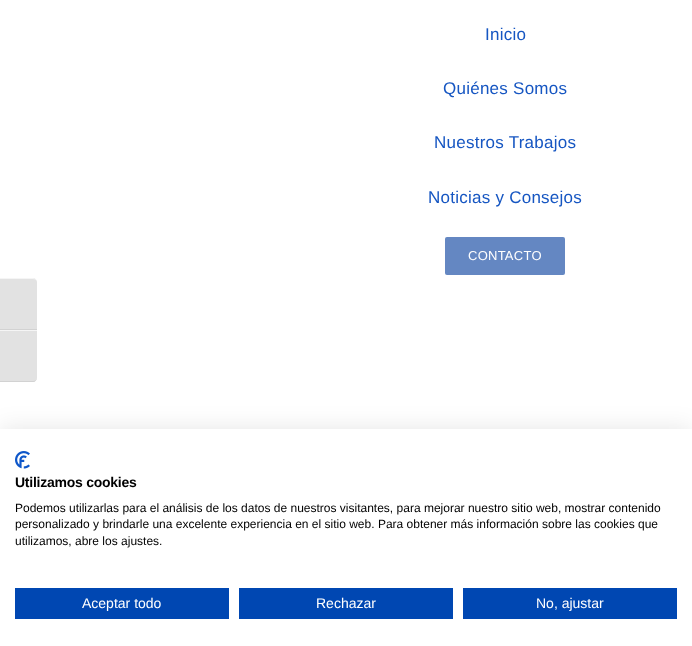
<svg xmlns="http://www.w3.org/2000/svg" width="692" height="646">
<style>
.a{font:17px Liberation Sans;letter-spacing:0.25px;fill:#1656c2}
.b{font:13px Liberation Sans;letter-spacing:0.25px;fill:#fff}
.c{font:bold 14px Liberation Sans;letter-spacing:-0.25px;fill:#000}
.d{font:12px Liberation Sans;fill:#000}
.e{font:14px Liberation Sans;fill:#fff}
</style>
<rect width="100%" height="100%" fill="#fff"/>
<rect fill="#6487c2" x="445" y="237" width="120" height="38" rx="2"/>
<path fill="#e2e2e2" d="M0 278h33c2 0 4 2 4 4v48h-37z"/>
<path fill="#f5f5f5" d="M0 278v1h33c2 0 4 1 4 3c0-2-2-4-4-4z"/>
<path fill="#d2d2d2" d="M0 329h37v1H0z"/>
<path fill="#e2e2e2" d="M0 330h37v48c0 2-2 4-4 4h-33z"/>
<path fill="#f5f5f5" d="M0 330h37v1H0z"/>
<path fill="#d2d2d2" d="M0 381v1h33c2 0 4-2 4-4c0 2-2 3-4 3z"/>
<path fill="#0000001a" filter="blur(12px)" d="M0 429h692v217H0z"/>
<path fill="#fff" d="M0 429h692v217H0z"/>
<image href="1.png" x="15" y="451" width="15" height="18"/>
<path fill="#0047b2" d="M15 588h214v31H15z"/>
<path fill="#0047b2" d="M239 588h214v31H239z"/>
<path fill="#0047b2" d="M463 588h214v31H463z"/>
<text class="a" x="485" y="40">Inicio</text>
<text class="a" x="443" y="94">Quiénes Somos</text>
<text class="a" x="434" y="148">Nuestros Trabajos</text>
<text class="a" x="428" y="203">Noticias y Consejos</text>
<text class="b" x="468" y="260">CONTACTO</text>
<text class="c" x="15" y="487">Utilizamos cookies</text>
<text class="d" x="15" y="512">Podemos utilizarlas para el análisis de los datos de nuestros visitantes, para mejorar nuestro sitio web, mostrar contenido</text>
<text class="d" x="15" y="528">personalizado y brindarle una excelente experiencia en el sitio web. Para obtener más información sobre las cookies que</text>
<text class="d" x="15" y="545">utilizamos, abre los ajustes.</text>
<text class="e" x="82" y="608">Aceptar todo</text>
<text class="e" x="316" y="608">Rechazar</text>
<text class="e" x="536" y="608">No, ajustar</text>
</svg>
